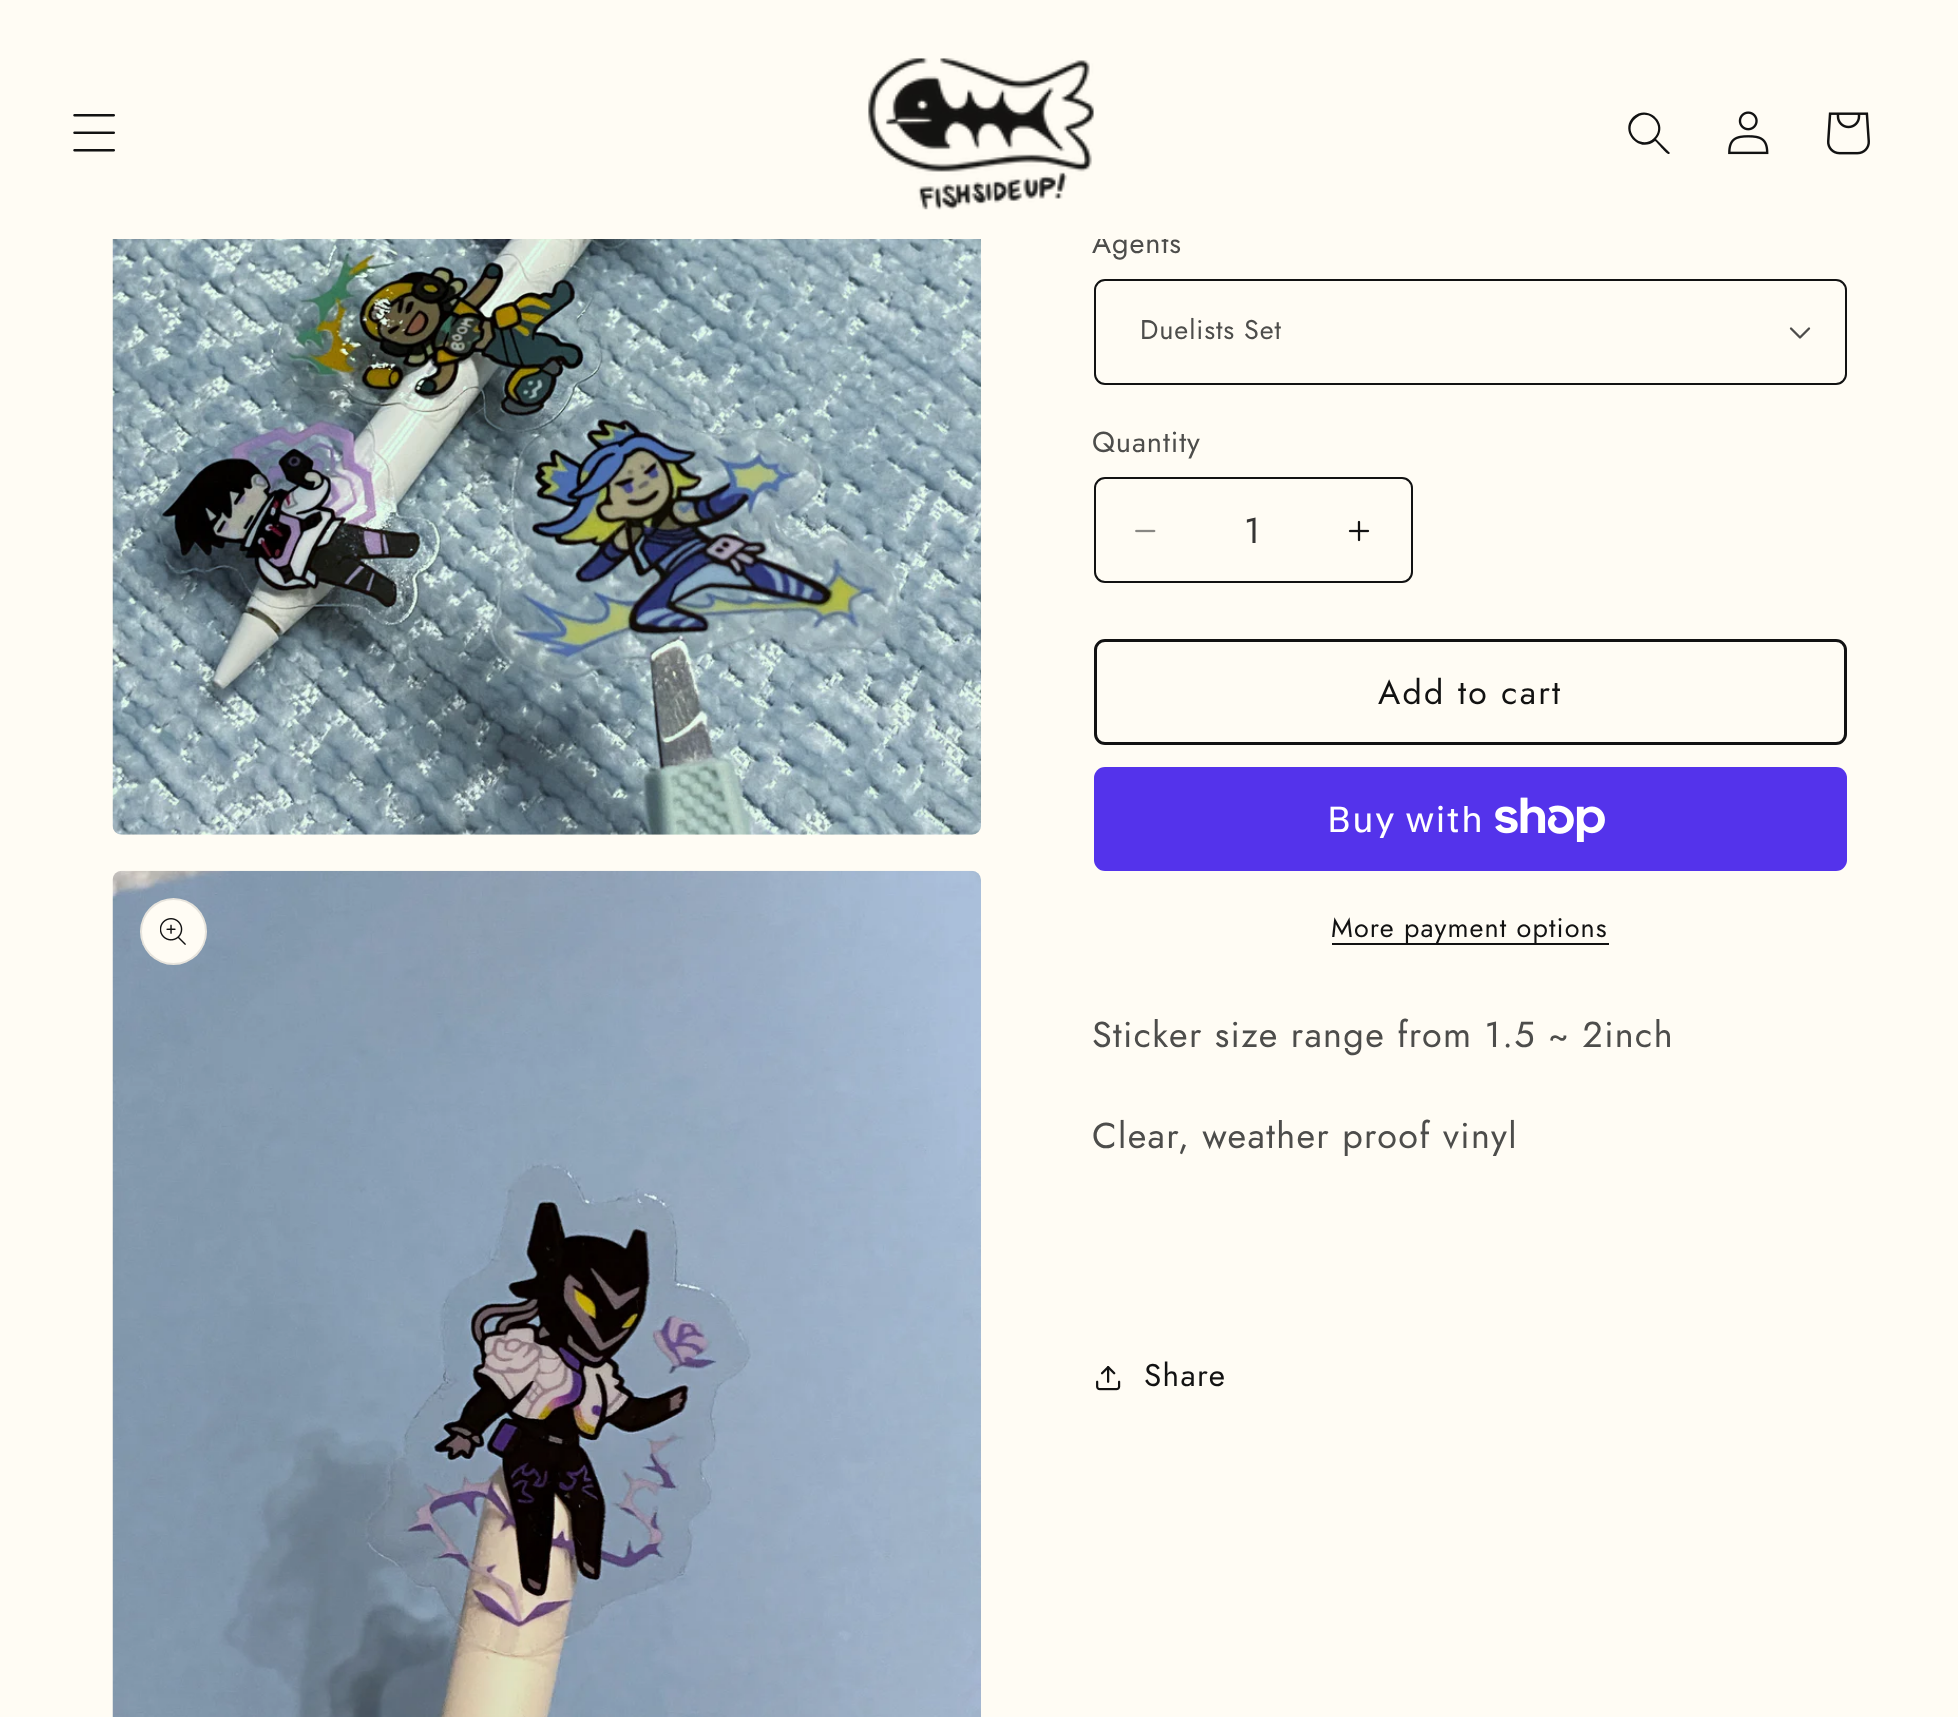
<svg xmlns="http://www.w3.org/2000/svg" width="1958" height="1717">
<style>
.a{font:29px Jost;letter-spacing:0.9px;fill:#4d4d4b}
.b{font:27px Jost;letter-spacing:0.9px;fill:#4d4d4b}
.c{font:36px Jost;fill:#363534}
.d{font:33.75px Jost;letter-spacing:2.25px;fill:#121212}
.e{font:36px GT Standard;letter-spacing:1.35px;fill:#fff}
.f{font:27px Jost;letter-spacing:1.1px;fill:#121212}
.g{font:36px Jost;letter-spacing:1.35px;fill:#4d4d4b}
.h{font:31.5px Jost;letter-spacing:1.35px;fill:#121212}
</style>
<rect width="100%" height="100%" fill="#fffcf4"/>
<image href="1.png" x="73" y="114" width="42" height="38"/>
<image href="2.png" x="868" y="58" width="226" height="152"/>
<path fill="#121212" fill-rule="evenodd" d="M1654 138c-13 13-32-7-19-19c12-13 32 6 19 19zm1 3c-16 13-36-10-22-24c15-14 37 7 23 22l14 14l-1 1c-2 1-12-12-14-13z"/>
<image href="3.png" x="1728" y="111" width="41" height="44"/>
<image href="4.png" x="1827" y="112" width="43" height="43"/>
<image href="5.png" x="112" y="239" width="869" height="596"/>
<image href="6.png" x="112" y="870" width="869" height="847"/>
<circle fill="#fffcf4" cx="173.5" cy="931.5" r="33.5"/>
<circle fill="none" stroke="#1212121a" stroke-width="2" cx="173.5" cy="931.5" r="32.5"/>
<image href="7.png" x="160" y="918" width="26" height="27"/>
<image href="8.png" x="1789" y="327" width="22" height="12"/>
<rect fill="none" stroke="#121212" stroke-width="2" x="1095" y="280" width="751" height="104" rx="10"/>
<image href="9.png" x="1135" y="529" width="21" height="4"/>
<image href="10.png" x="1348" y="520" width="22" height="22"/>
<rect fill="none" stroke="#121212" stroke-width="2" x="1095" y="478" width="317" height="104" rx="10"/>
<rect fill="none" stroke="#121212" stroke-width="3" x="1095.5" y="640.5" width="750" height="103" rx="9.5"/>
<rect fill="#5433eb" x="1094" y="767" width="753" height="104" rx="11"/>
<image href="11.png" x="1495" y="797" width="110" height="45"/>
<path fill="#121212" d="M1332 943h277v2H1332z"/>
<image href="12.png" x="1096" y="1366" width="25" height="25"/>
<text class="a" x="1092" y="253">Agents</text>
<path fill="#fffcf4" d="M1098 231h70v8H1098z"/>
<text class="b" x="1140" y="339">Duelists Set</text>
<text class="a" x="1092" y="452">Quantity</text>
<text class="c" x="1244" y="543">1</text>
<text class="d" x="1378" y="704">Add to cart</text>
<text class="e" x="1327" y="832">Buy with</text>
<text class="f" x="1331" y="937">More payment options</text>
<text class="g" x="1092" y="1047">Sticker size range from 1.5 ~ 2inch</text>
<text class="g" x="1092" y="1148">Clear, weather proof vinyl</text>
<text class="h" x="1144" y="1386">Share</text>
</svg>
